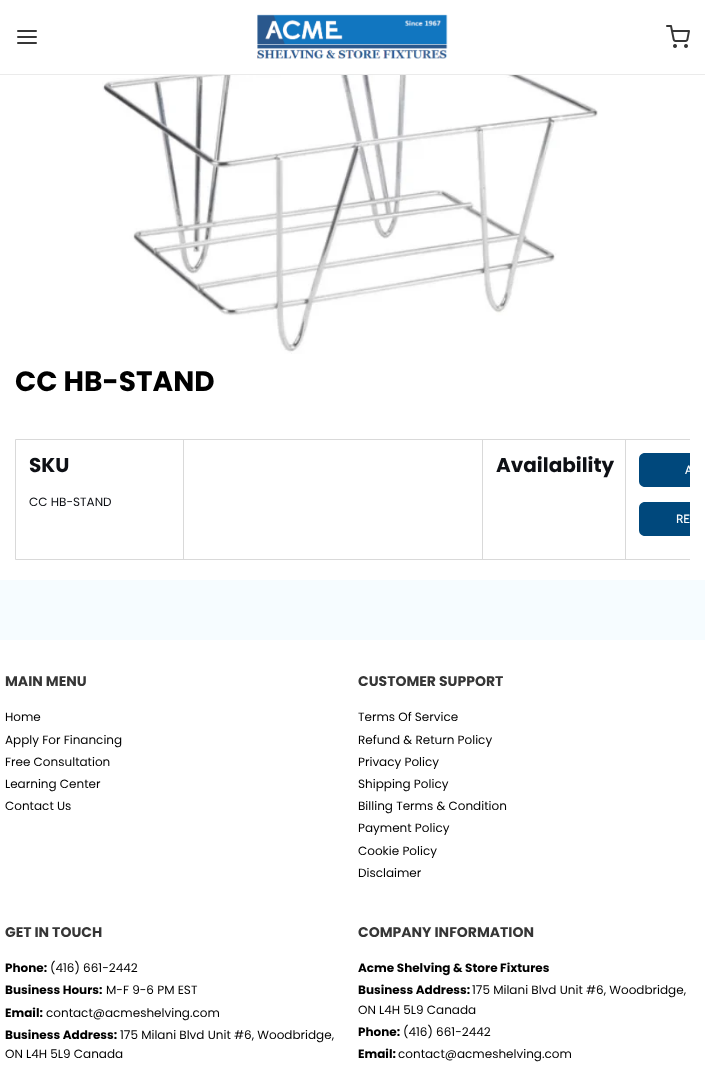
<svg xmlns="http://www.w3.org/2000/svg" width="705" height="1072">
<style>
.a{font:bold 28px Poppins;fill:#000}
.b{font:bold 20px Poppins;fill:#0e1015}
.c{font:12px Poppins;fill:#0e1015}
.d{font:12px Cabin;fill:#fff}
.e{font:bold 14px Poppins;fill:#363636}
.f{font:12px Poppins;fill:#000}
.g{font:bold 12px Poppins;fill:#000}
</style>
<defs>
<clipPath id="clip1"><path d="M15 409h675v151H15z"/></clipPath>
</defs>
<rect width="100%" height="100%" fill="#fff"/>
<path fill="#ebebeb" d="M0 74h705v1H0z"/>
<path fill="none" stroke="#363636" stroke-width="2" stroke-linecap="round" stroke-linejoin="round" d="M18 37h18m-18-6h18m-18 12h18"/>
<image href="1.png" x="257" y="14" width="191" height="45"/>
<image href="2.png" x="666" y="25" width="24" height="23"/>
<image href="3.png" x="102" y="75" width="496" height="279"/>
<g clip-path="url(#clip1)">
<path fill="none" stroke="#d9d9d9" d="M15.5 439.5h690v120H15.5z"/>
</g>
<path fill="#d9d9d9" d="M183 440h1v119H183z"/>
<path fill="#d9d9d9" d="M482 440h1v119H482z"/>
<path fill="#d9d9d9" d="M625 440h1v119H625z"/>
<path fill="#00487c" d="M645 453h45v34h-45c-3.5 0-6-2.5-6-6v-22c0-3.5 2.5-6 6-6z"/>
<path fill="#00487c" d="M645 502h45v34h-45c-3.5 0-6-2.5-6-6v-22c0-3.5 2.5-6 6-6z"/>
<path fill="#f6fcff" d="M0 580h705v60H0z"/>
<text class="a" x="15" y="391">CC HB-STAND</text>
<text class="b" x="29" y="472">SKU</text>
<text class="c" x="29" y="506">CC HB-STAND</text>
<text class="b" x="496" y="472">Availability</text>
<g clip-path="url(#clip1)">
<text class="d" x="685" y="474">A</text>
</g>
<text class="d" x="676" y="523">RE</text>
<text class="e" x="5" y="686">MAIN MENU</text>
<text class="f" x="5" y="721">Home</text>
<text class="f" x="5" y="744">Apply For Financing</text>
<text class="f" x="5" y="766">Free Consultation</text>
<text class="f" x="5" y="788">Learning Center</text>
<text class="f" x="5" y="810">Contact Us</text>
<text class="e" x="358" y="686">CUSTOMER SUPPORT</text>
<text class="f" x="358" y="721">Terms Of Service</text>
<text class="f" x="358" y="744">Refund &amp; Return Policy</text>
<text class="f" x="358" y="766">Privacy Policy</text>
<text class="f" x="358" y="788">Shipping Policy</text>
<text class="f" x="358" y="810">Billing Terms &amp; Condition</text>
<text class="f" x="358" y="832">Payment Policy</text>
<text class="f" x="358" y="855">Cookie Policy</text>
<text class="f" x="358" y="877">Disclaimer</text>
<text class="e" x="5" y="937">GET IN TOUCH</text>
<text class="g" x="5" y="972">Phone:</text>
<text class="f" x="50" y="972">(416) 661-2442</text>
<text class="g" x="5" y="994">Business Hours:</text>
<text class="f" x="106" y="994">M-F 9-6 PM EST</text>
<text class="g" x="5" y="1017">Email:</text>
<text class="f" x="46" y="1017">contact@acmeshelving.com</text>
<text class="g" x="5" y="1039">Business Address:</text>
<text class="f" x="120" y="1039">175 Milani Blvd Unit #6, Woodbridge,</text>
<text class="f" x="5" y="1058">ON L4H 5L9 Canada</text>
<text class="e" x="358" y="937">COMPANY INFORMATION</text>
<text class="g" x="358" y="972">Acme Shelving &amp; Store Fixtures</text>
<text class="g" x="358" y="994">Business Address:</text>
<text class="f" x="472" y="994">175 Milani Blvd Unit #6, Woodbridge,</text>
<text class="f" x="358" y="1014">ON L4H 5L9 Canada</text>
<text class="g" x="358" y="1036">Phone:</text>
<text class="f" x="403" y="1036">(416) 661-2442</text>
<text class="g" x="358" y="1058">Email:</text>
<text class="f" x="398" y="1058">contact@acmeshelving.com</text>
</svg>
